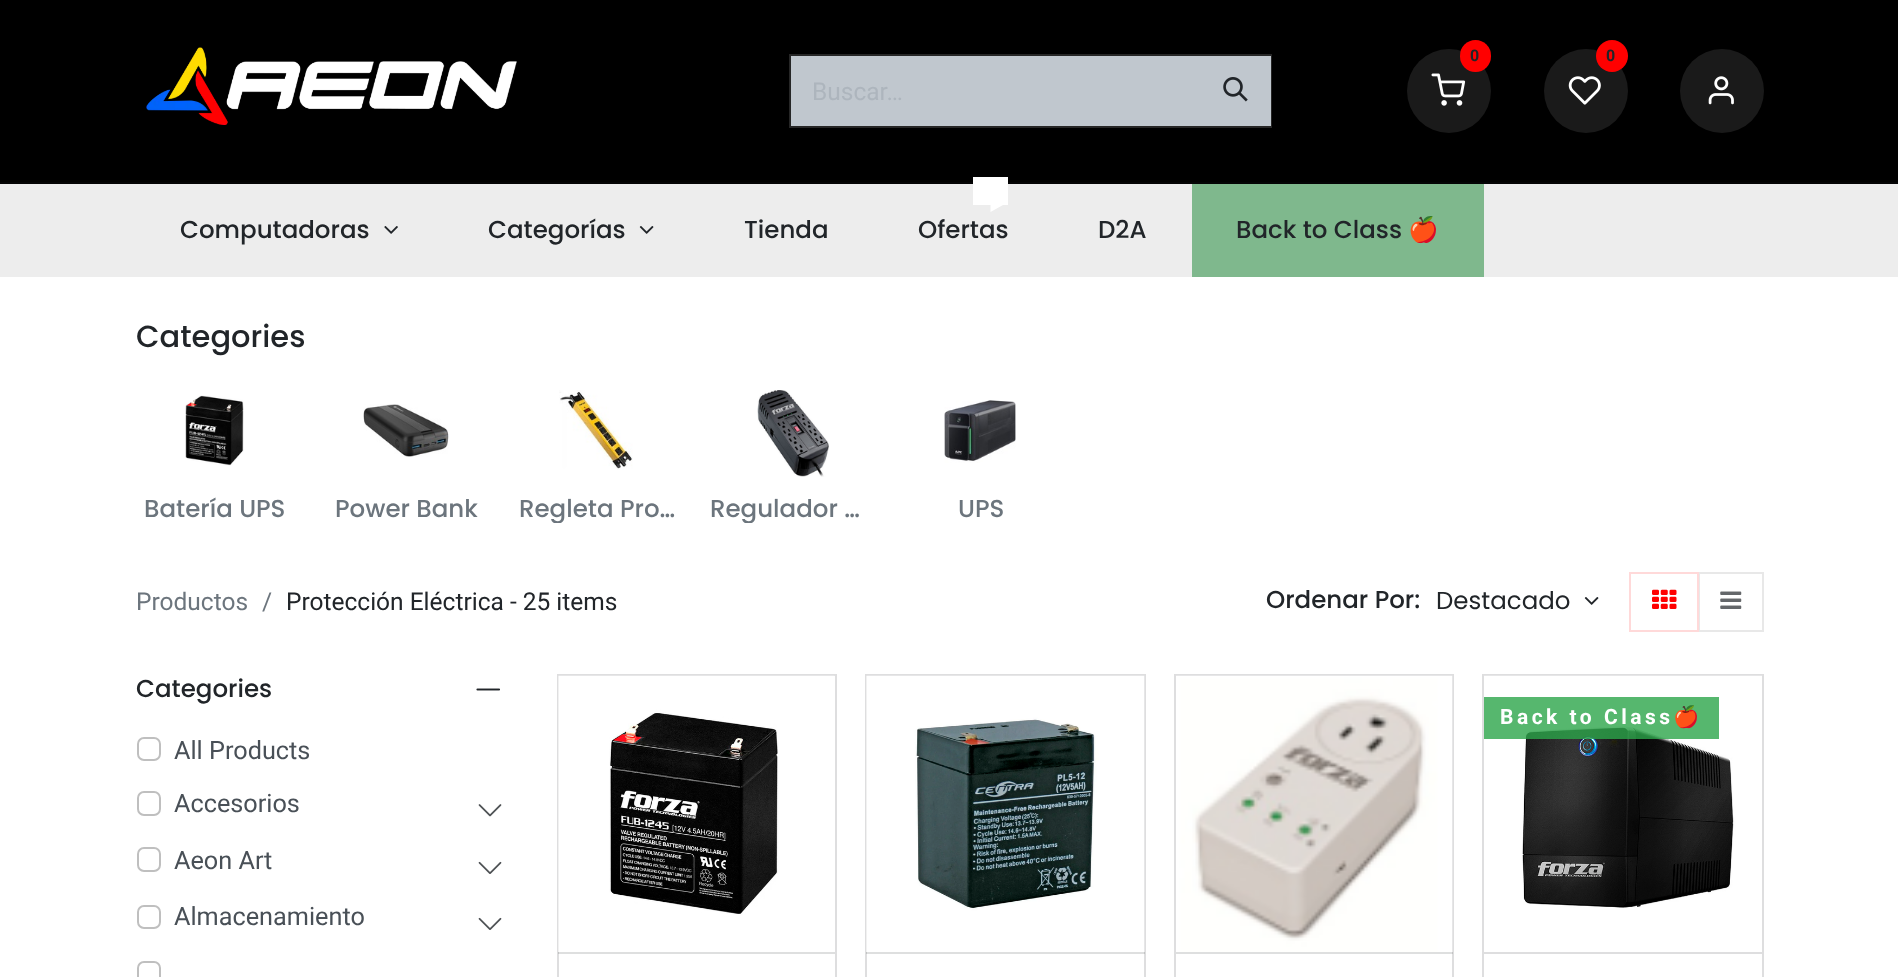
<svg xmlns="http://www.w3.org/2000/svg" width="1898" height="977">
<style>
.a{font:bold 16px Roboto;fill:#212529}
.b{font:24.5px Roboto;fill:#adb5bd}
.c{font:500 24.5px Poppins;fill:#212529}
.d{font:24.5px Noto Color Emoji;fill:#212529}
.e{font:500 30.5px Poppins;fill:#212529}
.f{font:500 24.5px Poppins;fill:#6c757d}
.g{font:24.5px Roboto;fill:#6c757d}
.h{font:24.5px Roboto;fill:#212529}
.i{font:24.5px Poppins;fill:#212529}
.j{font:25.25px Roboto;fill:#495057}
.k{font:bold 21px Roboto;letter-spacing:3.5px;fill:#fff}
.l{font:bold 21px Noto Color Emoji;letter-spacing:3.5px;fill:#fff}
</style>
<defs>
<clipPath id="clip1"><path d="M518 494h158v29H518z"/></clipPath>
<clipPath id="clip2"><path d="M711 494h157v29H711z"/></clipPath>
</defs>
<rect width="100%" height="100%" fill="#fff"/>
<path fill="#000" d="M0 0h1898v182H0z"/>
<path fill="#040405" d="M0 182h1898v2H0z"/>
<image href="1.png" x="146" y="47" width="371" height="78"/>
<circle fill="#1a1a1a" cx="1449" cy="91" r="42"/>
<image href="2.png" x="1431" y="73" width="35" height="33"/>
<rect fill="#f00" x="1460" y="40" width="31" height="32" rx="15.5"/>
<circle fill="#1a1a1a" cx="1586" cy="91" r="42"/>
<image href="3.png" x="1568" y="76" width="33" height="29"/>
<circle fill="#f00" cx="1612" cy="56" r="16"/>
<circle fill="#1a1a1a" cx="1722" cy="91" r="42"/>
<image href="4.png" x="1708" y="76" width="26" height="29"/>
<path fill="none" stroke="#262626" stroke-width="2" d="M790 55h481v72H790z"/>
<path fill="#c0c7ce" d="M791 56h480v70H791z"/>
<image href="5.png" x="1223" y="77" width="25" height="25"/>
<path fill="#ededed" d="M0 184h1898v93H0z"/>
<image href="6.png" x="384" y="226" width="14" height="8"/>
<image href="7.png" x="639" y="226" width="15" height="8"/>
<path fill="#fff" d="M973 177h35v28H973z"/>
<path fill="#fff" d="M990.5 205h12.5l-12.5 7z"/>
<path fill="#7fb88d" d="M1192 184h292v93H1192z"/>
<image href="8.png" x="185" y="395" width="59" height="71"/>
<image href="9.png" x="363" y="404" width="86" height="53"/>
<image href="10.png" x="559" y="390" width="74" height="80"/>
<image href="11.png" x="757" y="390" width="72" height="87"/>
<image href="12.png" x="944" y="400" width="72" height="63"/>
<image href="13.png" x="1584" y="597" width="15" height="8"/>
<path fill="none" stroke="#e8e8e8" stroke-width="2" d="M1699 573h64v58H1699z"/>
<path fill="none" stroke="#ffd9d9" stroke-width="2" d="M1630 573h68v58H1630z"/>
<image href="14.png" x="1652" y="589" width="25" height="20"/>
<image href="15.png" x="1720" y="591" width="22" height="18"/>
<image href="16.png" x="476" y="688" width="24" height="3"/>
<rect fill="none" stroke="#bfbfbf" stroke-width="2" x="138" y="738" width="22" height="22" rx="6"/>
<rect fill="none" stroke="#bfbfbf" stroke-width="2" x="138" y="792" width="22" height="23" rx="6"/>
<image href="17.png" x="478" y="804" width="24" height="13"/>
<rect fill="none" stroke="#bfbfbf" stroke-width="2" x="138" y="848" width="22" height="23" rx="6"/>
<image href="18.png" x="478" y="861" width="24" height="13"/>
<rect fill="none" stroke="#bfbfbf" stroke-width="2" x="138" y="906" width="22" height="22" rx="6"/>
<image href="18.png" x="478" y="917" width="24" height="13"/>
<rect fill="none" stroke="#bfbfbf" stroke-width="2" x="138" y="962" width="22" height="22" rx="6"/>
<path fill="none" stroke="#dededf" stroke-width="2" d="M558 675h278v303H558z"/>
<image href="19.png" x="558" y="675" width="277" height="277"/>
<path fill="#21252926" d="M558 952h277v2H558z"/>
<path fill="none" stroke="#dededf" stroke-width="2" d="M866 675h279v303H866z"/>
<image href="20.png" x="866" y="675" width="279" height="277"/>
<path fill="#21252926" d="M866 952h279v2H866z"/>
<path fill="none" stroke="#dededf" stroke-width="2" d="M1175 675h278v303H1175z"/>
<image href="21.png" x="1176" y="675" width="277" height="277"/>
<path fill="#21252926" d="M1176 952h277v2H1176z"/>
<path fill="none" stroke="#dededf" stroke-width="2" d="M1483 675h280v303H1483z"/>
<image href="22.png" x="1484" y="675" width="278" height="233"/>
<path fill="#2ca54acc" d="M1484 697h235v42H1484z"/>
<path fill="#dededf" d="M1484 952h278v2H1484z"/>
<text class="a" x="1470" y="61">0</text>
<text class="a" x="1606" y="61">0</text>
<text class="b" x="812" y="100">Buscar…</text>
<text class="c" x="180" y="238">Computadoras</text>
<text class="c" x="488" y="238">Categorías</text>
<text class="c" x="744" y="238">Tienda</text>
<text class="c" x="918" y="238">Ofertas</text>
<text class="c" x="1098" y="238">D2A</text>
<text class="c" x="1236" y="238">Back to Class</text>
<text class="d" x="1408" y="238">🍎</text>
<text class="e" x="136" y="347">Categories</text>
<text class="f" x="144" y="517">Batería UPS</text>
<text class="f" x="335" y="517">Power Bank</text>
<g clip-path="url(#clip1)">
<text class="f" x="519" y="517">Regleta Pro…</text>
</g>
<g clip-path="url(#clip2)">
<text class="f" x="710" y="517">Regulador …</text>
</g>
<text class="f" x="958" y="517">UPS</text>
<text class="g" x="136" y="610">Productos</text>
<text class="g" x="262" y="610">/</text>
<text class="h" x="286" y="610">Protección Eléctrica - 25 items</text>
<text class="c" x="1266" y="608">Ordenar Por:</text>
<text class="i" x="1436" y="609">Destacado</text>
<text class="c" x="136" y="697">Categories</text>
<text class="j" x="174" y="759">All Products</text>
<text class="j" x="174" y="812">Accesorios</text>
<text class="j" x="174" y="869">Aeon Art</text>
<text class="j" x="174" y="925">Almacenamiento</text>
<text class="k" x="1500" y="724">Back to Class</text>
<text class="l" x="1673" y="724">🍎</text>
</svg>
